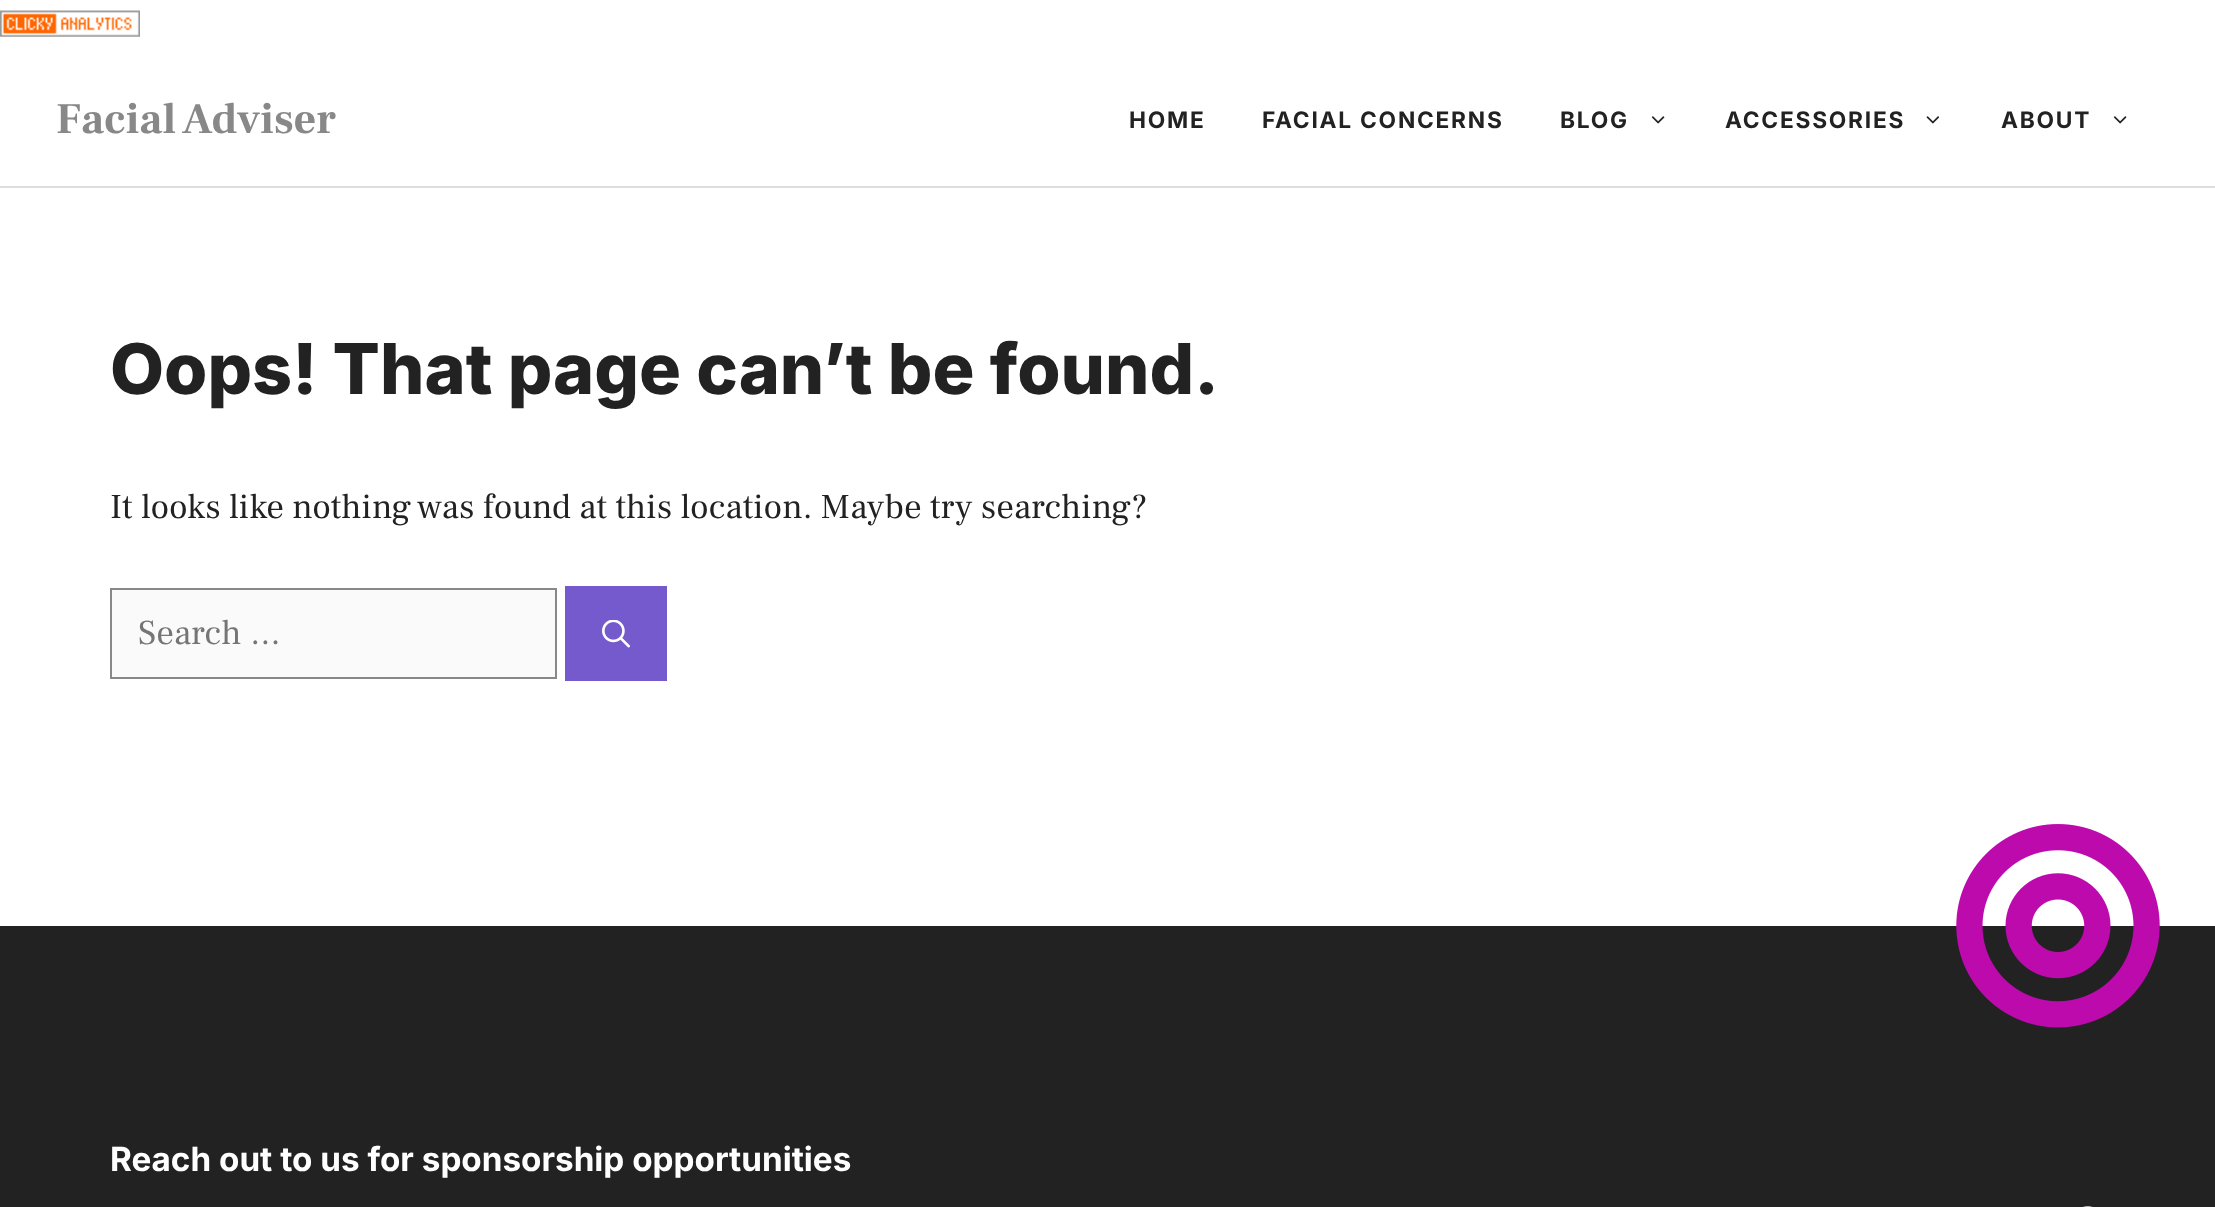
<svg xmlns="http://www.w3.org/2000/svg" width="2215" height="1207">
<style>
.a{font:bold 43.75px Frank Ruhl Libre;fill:#888}
.b{font:bold 22.75px Inter;letter-spacing:1.75px;fill:#222}
.c{font:800 70px Inter;fill:#222}
.d{font:35px Frank Ruhl Libre;fill:#222}
.e{font:35px Frank Ruhl Libre;fill:#757575}
.f{font:bold 33.25px Inter;fill:#fff}
</style>
<rect width="100%" height="100%" fill="#fff"/>
<image href="1.png" x="0" y="10" width="140" height="27"/>
<path fill="#ddd" d="M0 186h2215v2H0z"/>
<image href="2.png" x="1651" y="116" width="14" height="8"/>
<image href="3.png" x="1926" y="116" width="14" height="8"/>
<image href="2.png" x="2113" y="116" width="14" height="8"/>
<path fill="#fafafa" stroke="#888" stroke-width="2" d="M111 589h445v89H111z"/>
<path fill="#745acc" d="M565 586h102v95H565z"/>
<image href="4.png" x="602" y="620" width="28" height="28"/>
<path fill="#222" d="M0 926h2215v281H0z"/>
<image href="5.png" x="1956" y="824" width="204" height="204"/>
<image href="6.png" x="2083" y="1206" width="10" height="1"/>
<text class="a" x="56" y="133">Facial Adviser</text>
<text class="b" x="1129" y="128">HOME</text>
<text class="b" x="1262" y="128">FACIAL CONCERNS</text>
<text class="b" x="1560" y="128">BLOG</text>
<text class="b" x="1725" y="128">ACCESSORIES</text>
<text class="b" x="2001" y="128">ABOUT</text>
<text class="c" x="110" y="394">Oops! That page can’t be found.</text>
<text class="d" x="110" y="518">It looks like nothing was found at this location. Maybe try searching?</text>
<text class="e" x="138" y="644">Search …</text>
<text class="f" x="110" y="1171">Reach out to us for sponsorship opportunities</text>
</svg>
